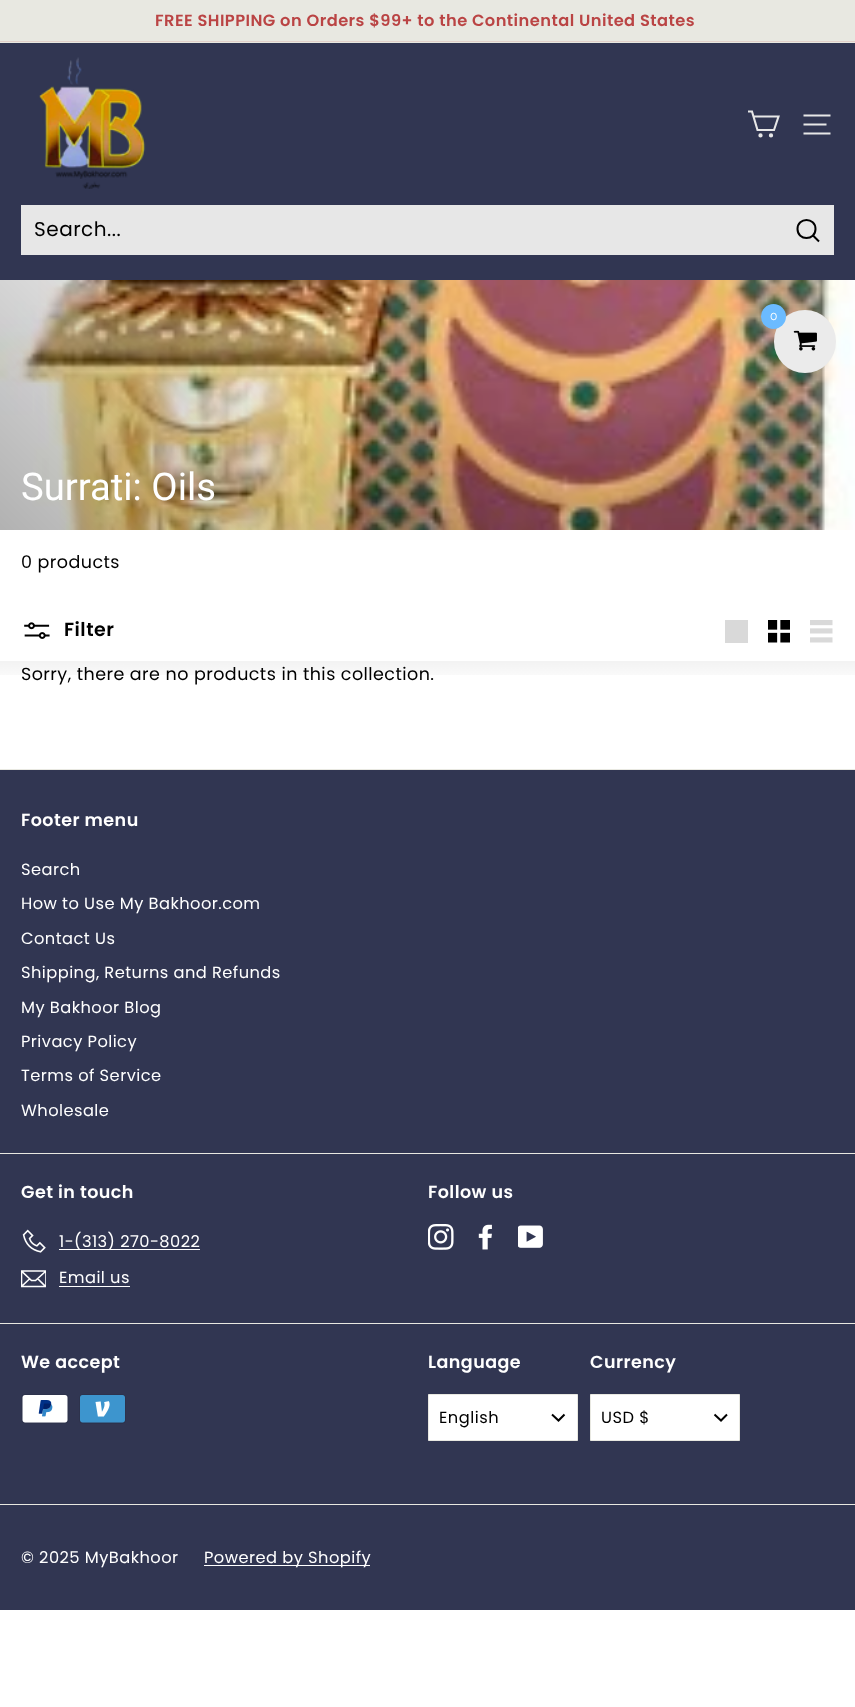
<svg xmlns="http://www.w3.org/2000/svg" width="855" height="1707">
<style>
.a{font:600 16.25px Poppins;letter-spacing:0.45px;fill:#ba4444}
.b{font:20px Poppins;letter-spacing:0.5px;fill:#000}
.c{font:38.25px Roboto;fill:#fff}
.d{font:17.5px Poppins;letter-spacing:0.45px;fill:#000}
.e{font:600 19px Poppins;letter-spacing:0.5px;fill:#000}
.f{font:600 17.5px Poppins;letter-spacing:0.45px;fill:#fff}
.g{font:16.25px Poppins;letter-spacing:0.45px;fill:#fff}
.h{font:16.25px Poppins;letter-spacing:0.5px;fill:#000}
.i{font:100 12px Raleway;letter-spacing:0.45px;fill:#fff}
</style>
<defs>
<linearGradient id="g1" gradientUnits="userSpaceOnUse" x1="428" y1="661" x2="428" y2="686"><stop offset="0" stop-color="#000" stop-opacity="0.05"/><stop offset="1" stop-color="#000" stop-opacity="0"/></linearGradient>
<clipPath id="clip1"><path d="M21 1266h25v25H21z"/></clipPath>
</defs>
<rect width="100%" height="100%" fill="#fff"/>
<path fill="#e8e8e1" d="M0 0h855v43H0z"/>
<path fill="#e1cfc9" d="M0 41h855v1H0z"/>
<path fill="#313652" d="M0 43h855v237H0z"/>
<image href="1.png" x="39" y="57" width="107" height="132"/>
<path fill="none" stroke="#e7e7e7" stroke-width="2.1" d="M753.5 116.5h25l-4.5 13.5h-16.5l-5.5-18.5h-4"/>
<circle fill="none" stroke="#e7e7e7" stroke-width="2.1" cx="760.5" cy="135.4" r="1.1"/>
<circle fill="none" stroke="#e7e7e7" stroke-width="2.1" cx="771" cy="135.4" r="1.1"/>
<path fill="none" stroke="#e7e7e7" stroke-width="2.1" d="M803.5 115.5h27m-27 9h23m-23 9h27"/>
<path fill="#e7e7e7" d="M21 205h813v50H21z"/>
<path fill="none" stroke="#000" stroke-width="2" d="M815.5 229c0 12-18 12-18 0c0-12 18-12 18 0zm3.5 12.5l-6-6"/>
<image href="2.png" x="0" y="280" width="855" height="250"/>
<image href="3.png" x="24" y="622" width="26" height="17"/>
<path fill="#d9d9d9" d="M725 620h23v23H725z"/>
<image href="4.png" x="768" y="620" width="22" height="23"/>
<image href="5.png" x="810" y="620" width="23" height="23"/>
<path fill="url(#g1)" d="M0 661h855v14H0z"/>
<path fill="#313652" d="M0 770h855v840H0z"/>
<path fill="#e8e8e1" d="M0 769h855v1H0z"/>
<path fill="#e8e8e1" d="M0 1153h855v1H0z"/>
<image href="6.png" x="22" y="1229" width="24" height="24"/>
<path fill="#fff" d="M59 1249h141v1H59z"/>
<g clip-path="url(#clip1)">
<path fill="none" stroke="#fff" stroke-width="1.6" d="M46 1286.5h-24.5v-15.5h24.5zm-24.5-15.5l10 9.5h4l10.5-9.5m-16 7.5l-8 7.5m23.5 .5l-8-8"/>
</g>
<path fill="#fff" d="M59 1286h71v1H59z"/>
<image href="7.png" x="428" y="1224" width="26" height="26"/>
<image href="8.png" x="478" y="1224" width="14" height="26"/>
<image href="9.png" x="518" y="1225" width="25" height="23"/>
<path fill="#e8e8e1" d="M0 1323h855v1H0z"/>
<image href="10.png" x="21" y="1394" width="48" height="30"/>
<image href="11.png" x="79" y="1394" width="47" height="30"/>
<path fill="#fff" stroke="#e8e8e1" d="M428.5 1394.5h149v46H428.5z"/>
<path fill="none" stroke="#000" stroke-width="2" d="M552 1414.5l6.5 6l6-6"/>
<path fill="#fff" stroke="#e8e8e1" d="M590.5 1394.5h149v46H590.5z"/>
<path fill="none" stroke="#000" stroke-width="2" d="M714.5 1414.5l6.5 6l6-6"/>
<path fill="#e8e8e1" d="M0 1504h855v1H0z"/>
<path fill="#fff" d="M204 1565h166v1H204z"/>
<rect fill="#ebebeb" x="774" y="310" width="62" height="63" rx="31"/>
<circle fill="#6bbbff" cx="773.5" cy="316.5" r="12.5"/>
<image href="12.png" x="793" y="330" width="24" height="21"/>
<text class="a" x="155" y="26">FREE SHIPPING on Orders $99+ to the Continental United States</text>
<text class="b" x="34" y="236">Search...</text>
<text class="c" x="21" y="500">Surrati: Oils</text>
<text class="d" x="21" y="568">0 products</text>
<text class="e" x="64" y="636">Filter</text>
<text class="d" x="21" y="680">Sorry, there are no products in this collection.</text>
<text class="f" x="21" y="826">Footer menu</text>
<text class="g" x="21" y="875">Search</text>
<text class="g" x="21" y="909">How to Use My Bakhoor.com</text>
<text class="g" x="21" y="944">Contact Us</text>
<text class="g" x="21" y="978">Shipping, Returns and Refunds</text>
<text class="g" x="21" y="1013">My Bakhoor Blog</text>
<text class="g" x="21" y="1047">Privacy Policy</text>
<text class="g" x="21" y="1081">Terms of Service</text>
<text class="g" x="21" y="1116">Wholesale</text>
<text class="f" x="21" y="1198">Get in touch</text>
<text class="g" x="59" y="1247">1-(313) 270-8022</text>
<text class="g" x="59" y="1283">Email us</text>
<text class="f" x="428" y="1198">Follow us</text>
<text class="f" x="21" y="1368">We accept</text>
<text class="f" x="428" y="1368">Language</text>
<text class="h" x="439" y="1423">English</text>
<text class="f" x="590" y="1368">Currency</text>
<text class="h" x="601" y="1423">USD $</text>
<text class="g" x="21" y="1563">© 2025 MyBakhoor</text>
<text class="g" x="204" y="1563">Powered by Shopify</text>
<text class="i" x="770" y="320">0</text>
</svg>
